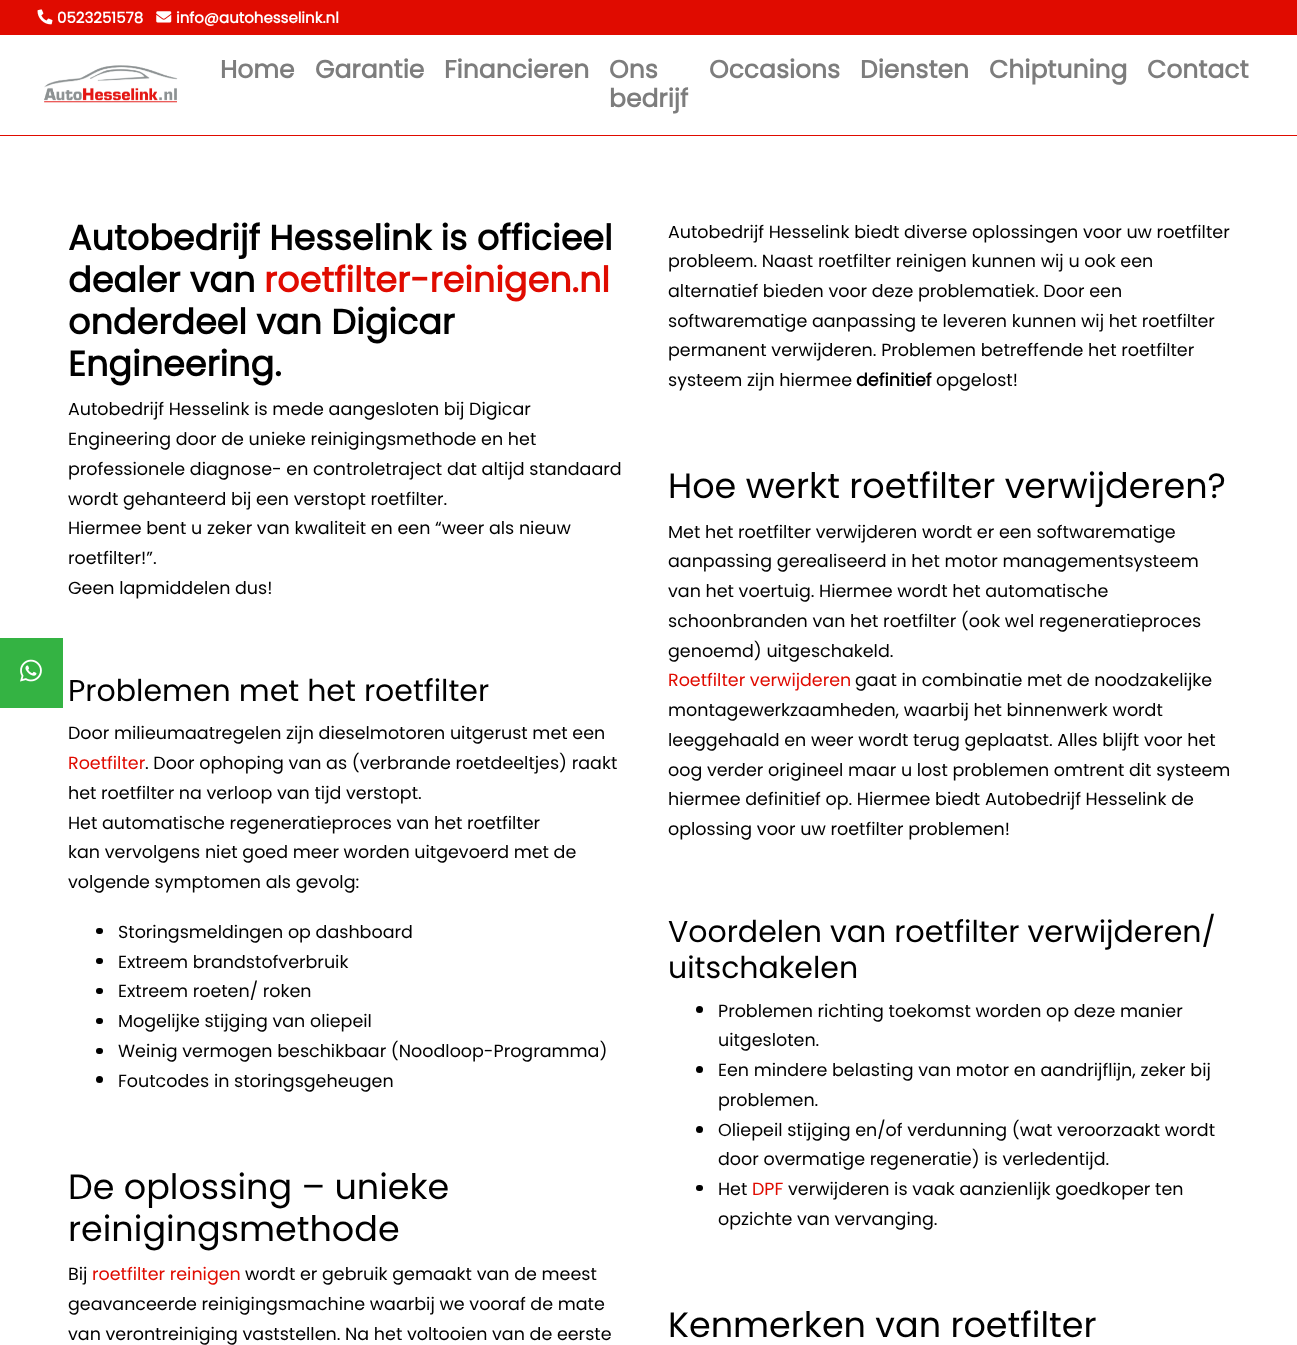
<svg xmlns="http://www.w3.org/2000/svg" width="1297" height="1345">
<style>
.a{font:bold 15px Poppins;fill:#fff}
.b{font:bold 25px Poppins;fill:#7d7d7d}
.c{font:bold 35px Poppins;fill:#000}
.d{font:bold 35px Poppins;fill:#e00b00}
.e{font:17.5px Poppins;fill:#000}
.f{font:30px Poppins;fill:#000}
.g{font:17.5px Poppins;fill:#e00b00}
.h{font:35px Poppins;fill:#000}
.i{font:bold 17.5px Poppins;fill:#000}
</style>
<rect width="100%" height="100%" fill="#fff"/>
<path fill="#e00b00" d="M0 0h1297v35H0z"/>
<image href="1.png" x="37" y="9" width="16" height="16"/>
<image href="2.png" x="156" y="11" width="16" height="12"/>
<path fill="#e00b00" d="M0 135h1297v1H0z"/>
<image href="3.png" x="44" y="65" width="134" height="38"/>
<path fill="#34b343" d="M0 638h63v70H0z"/>
<image href="4.png" x="20" y="659" width="22" height="23"/>
<rect fill="#000" x="96" y="928" width="7" height="6" rx="3"/>
<rect fill="#000" x="96" y="958" width="7" height="6" rx="3"/>
<rect fill="#000" x="96" y="988" width="7" height="6" rx="3"/>
<rect fill="#000" x="96" y="1018" width="7" height="6" rx="3"/>
<rect fill="#000" x="96" y="1048" width="7" height="6" rx="3"/>
<circle fill="#000" cx="99.5" cy="1079.5" r="3.5"/>
<circle fill="#000" cx="699.5" cy="1009.5" r="3.5"/>
<circle fill="#000" cx="699.5" cy="1069.5" r="3.5"/>
<circle fill="#000" cx="699.5" cy="1129.5" r="3.5"/>
<rect fill="#000" x="696" y="1185" width="7" height="6" rx="3"/>
<text class="a" x="57" y="23">0523251578</text>
<text class="a" x="176" y="23">info@autohesselink.nl</text>
<text class="b" x="220" y="78">Home</text>
<text class="b" x="315" y="78">Garantie</text>
<text class="b" x="444" y="78">Financieren</text>
<text class="b" x="609" y="78">Ons</text>
<text class="b" x="609" y="107">bedrijf</text>
<text class="b" x="709" y="78">Occasions</text>
<text class="b" x="860" y="78">Diensten</text>
<text class="b" x="989" y="78">Chiptuning</text>
<text class="b" x="1147" y="78">Contact</text>
<text class="c" x="68" y="250">Autobedrijf Hesselink is officieel</text>
<text class="c" x="68" y="292">dealer van</text>
<text class="d" x="264" y="292">roetfilter-reinigen.nl</text>
<text class="c" x="68" y="334">onderdeel van Digicar</text>
<text class="c" x="68" y="376">Engineering.</text>
<text class="e" x="68" y="415">Autobedrijf Hesselink is mede aangesloten bij Digicar</text>
<text class="e" x="68" y="445">Engineering door de unieke reinigingsmethode en het</text>
<text class="e" x="68" y="475">professionele diagnose- en controletraject dat altijd standaard</text>
<text class="e" x="68" y="505">wordt gehanteerd bij een verstopt roetfilter.</text>
<text class="e" x="68" y="534">Hiermee bent u zeker van kwaliteit en een “weer als nieuw</text>
<text class="e" x="68" y="564">roetfilter!”.</text>
<text class="e" x="68" y="594">Geen lapmiddelen dus!</text>
<text class="f" x="68" y="701">Problemen met het roetfilter</text>
<text class="e" x="68" y="739">Door milieumaatregelen zijn dieselmotoren uitgerust met een</text>
<text class="g" x="68" y="769">Roetfilter</text>
<text class="e" x="145" y="769">. Door ophoping van as (verbrande roetdeeltjes) raakt</text>
<text class="e" x="68" y="799">het roetfilter na verloop van tijd verstopt.</text>
<text class="e" x="68" y="829">Het automatische regeneratieproces van het roetfilter</text>
<text class="e" x="68" y="858">kan vervolgens niet goed meer worden uitgevoerd met de</text>
<text class="e" x="68" y="888">volgende symptomen als gevolg:</text>
<text class="e" x="118" y="938">Storingsmeldingen op dashboard</text>
<text class="e" x="118" y="968">Extreem brandstofverbruik</text>
<text class="e" x="118" y="997">Extreem roeten/ roken</text>
<text class="e" x="118" y="1027">Mogelijke stijging van oliepeil</text>
<text class="e" x="118" y="1057">Weinig vermogen beschikbaar (Noodloop-Programma)</text>
<text class="e" x="118" y="1087">Foutcodes in storingsgeheugen</text>
<text class="h" x="68" y="1199">De oplossing – unieke</text>
<text class="h" x="68" y="1241">reinigingsmethode</text>
<text class="e" x="68" y="1280">Bij</text>
<text class="g" x="92" y="1280">roetfilter reinigen</text>
<text class="e" x="245" y="1280">wordt er gebruik gemaakt van de meest</text>
<text class="e" x="68" y="1310">geavanceerde reinigingsmachine waarbij we vooraf de mate</text>
<text class="e" x="68" y="1340">van verontreiniging vaststellen. Na het voltooien van de eerste</text>
<text class="e" x="668" y="238">Autobedrijf Hesselink biedt diverse oplossingen voor uw roetfilter</text>
<text class="e" x="668" y="267">probleem. Naast roetfilter reinigen kunnen wij u ook een</text>
<text class="e" x="668" y="297">alternatief bieden voor deze problematiek. Door een</text>
<text class="e" x="668" y="327">softwarematige aanpassing te leveren kunnen wij het roetfilter</text>
<text class="e" x="668" y="356">permanent verwijderen. Problemen betreffende het roetfilter</text>
<text class="e" x="668" y="386">systeem zijn hiermee</text>
<text class="i" x="856" y="386">definitief</text>
<text class="e" x="936" y="386">opgelost!</text>
<text class="h" x="668" y="498">Hoe werkt roetfilter verwijderen?</text>
<text class="e" x="668" y="538">Met het roetfilter verwijderen wordt er een softwarematige</text>
<text class="e" x="668" y="567">aanpassing gerealiseerd in het motor managementsysteem</text>
<text class="e" x="668" y="597">van het voertuig. Hiermee wordt het automatische</text>
<text class="e" x="668" y="627">schoonbranden van het roetfilter (ook wel regeneratieproces</text>
<text class="e" x="668" y="657">genoemd) uitgeschakeld.</text>
<text class="g" x="668" y="686">Roetfilter verwijderen</text>
<text class="e" x="855" y="686">gaat in combinatie met de noodzakelijke</text>
<text class="e" x="668" y="716">montagewerkzaamheden, waarbij het binnenwerk wordt</text>
<text class="e" x="668" y="746">leeggehaald en weer wordt terug geplaatst. Alles blijft voor het</text>
<text class="e" x="668" y="776">oog verder origineel maar u lost problemen omtrent dit systeem</text>
<text class="e" x="668" y="805">hiermee definitief op. Hiermee biedt Autobedrijf Hesselink de</text>
<text class="e" x="668" y="835">oplossing voor uw roetfilter problemen!</text>
<text class="f" x="668" y="942">Voordelen van roetfilter verwijderen/</text>
<text class="f" x="668" y="978">uitschakelen</text>
<text class="e" x="718" y="1017">Problemen richting toekomst worden op deze manier</text>
<text class="e" x="718" y="1046">uitgesloten.</text>
<text class="e" x="718" y="1076">Een mindere belasting van motor en aandrijflijn, zeker bij</text>
<text class="e" x="718" y="1106">problemen.</text>
<text class="e" x="718" y="1136">Oliepeil stijging en/of verdunning (wat veroorzaakt wordt</text>
<text class="e" x="718" y="1165">door overmatige regeneratie) is verledentijd.</text>
<text class="e" x="718" y="1195">Het</text>
<text class="g" x="752" y="1195">DPF</text>
<text class="e" x="788" y="1195">verwijderen is vaak aanzienlijk goedkoper ten</text>
<text class="e" x="718" y="1225">opzichte van vervanging.</text>
<text class="h" x="668" y="1337">Kenmerken van roetfilter</text>
</svg>
